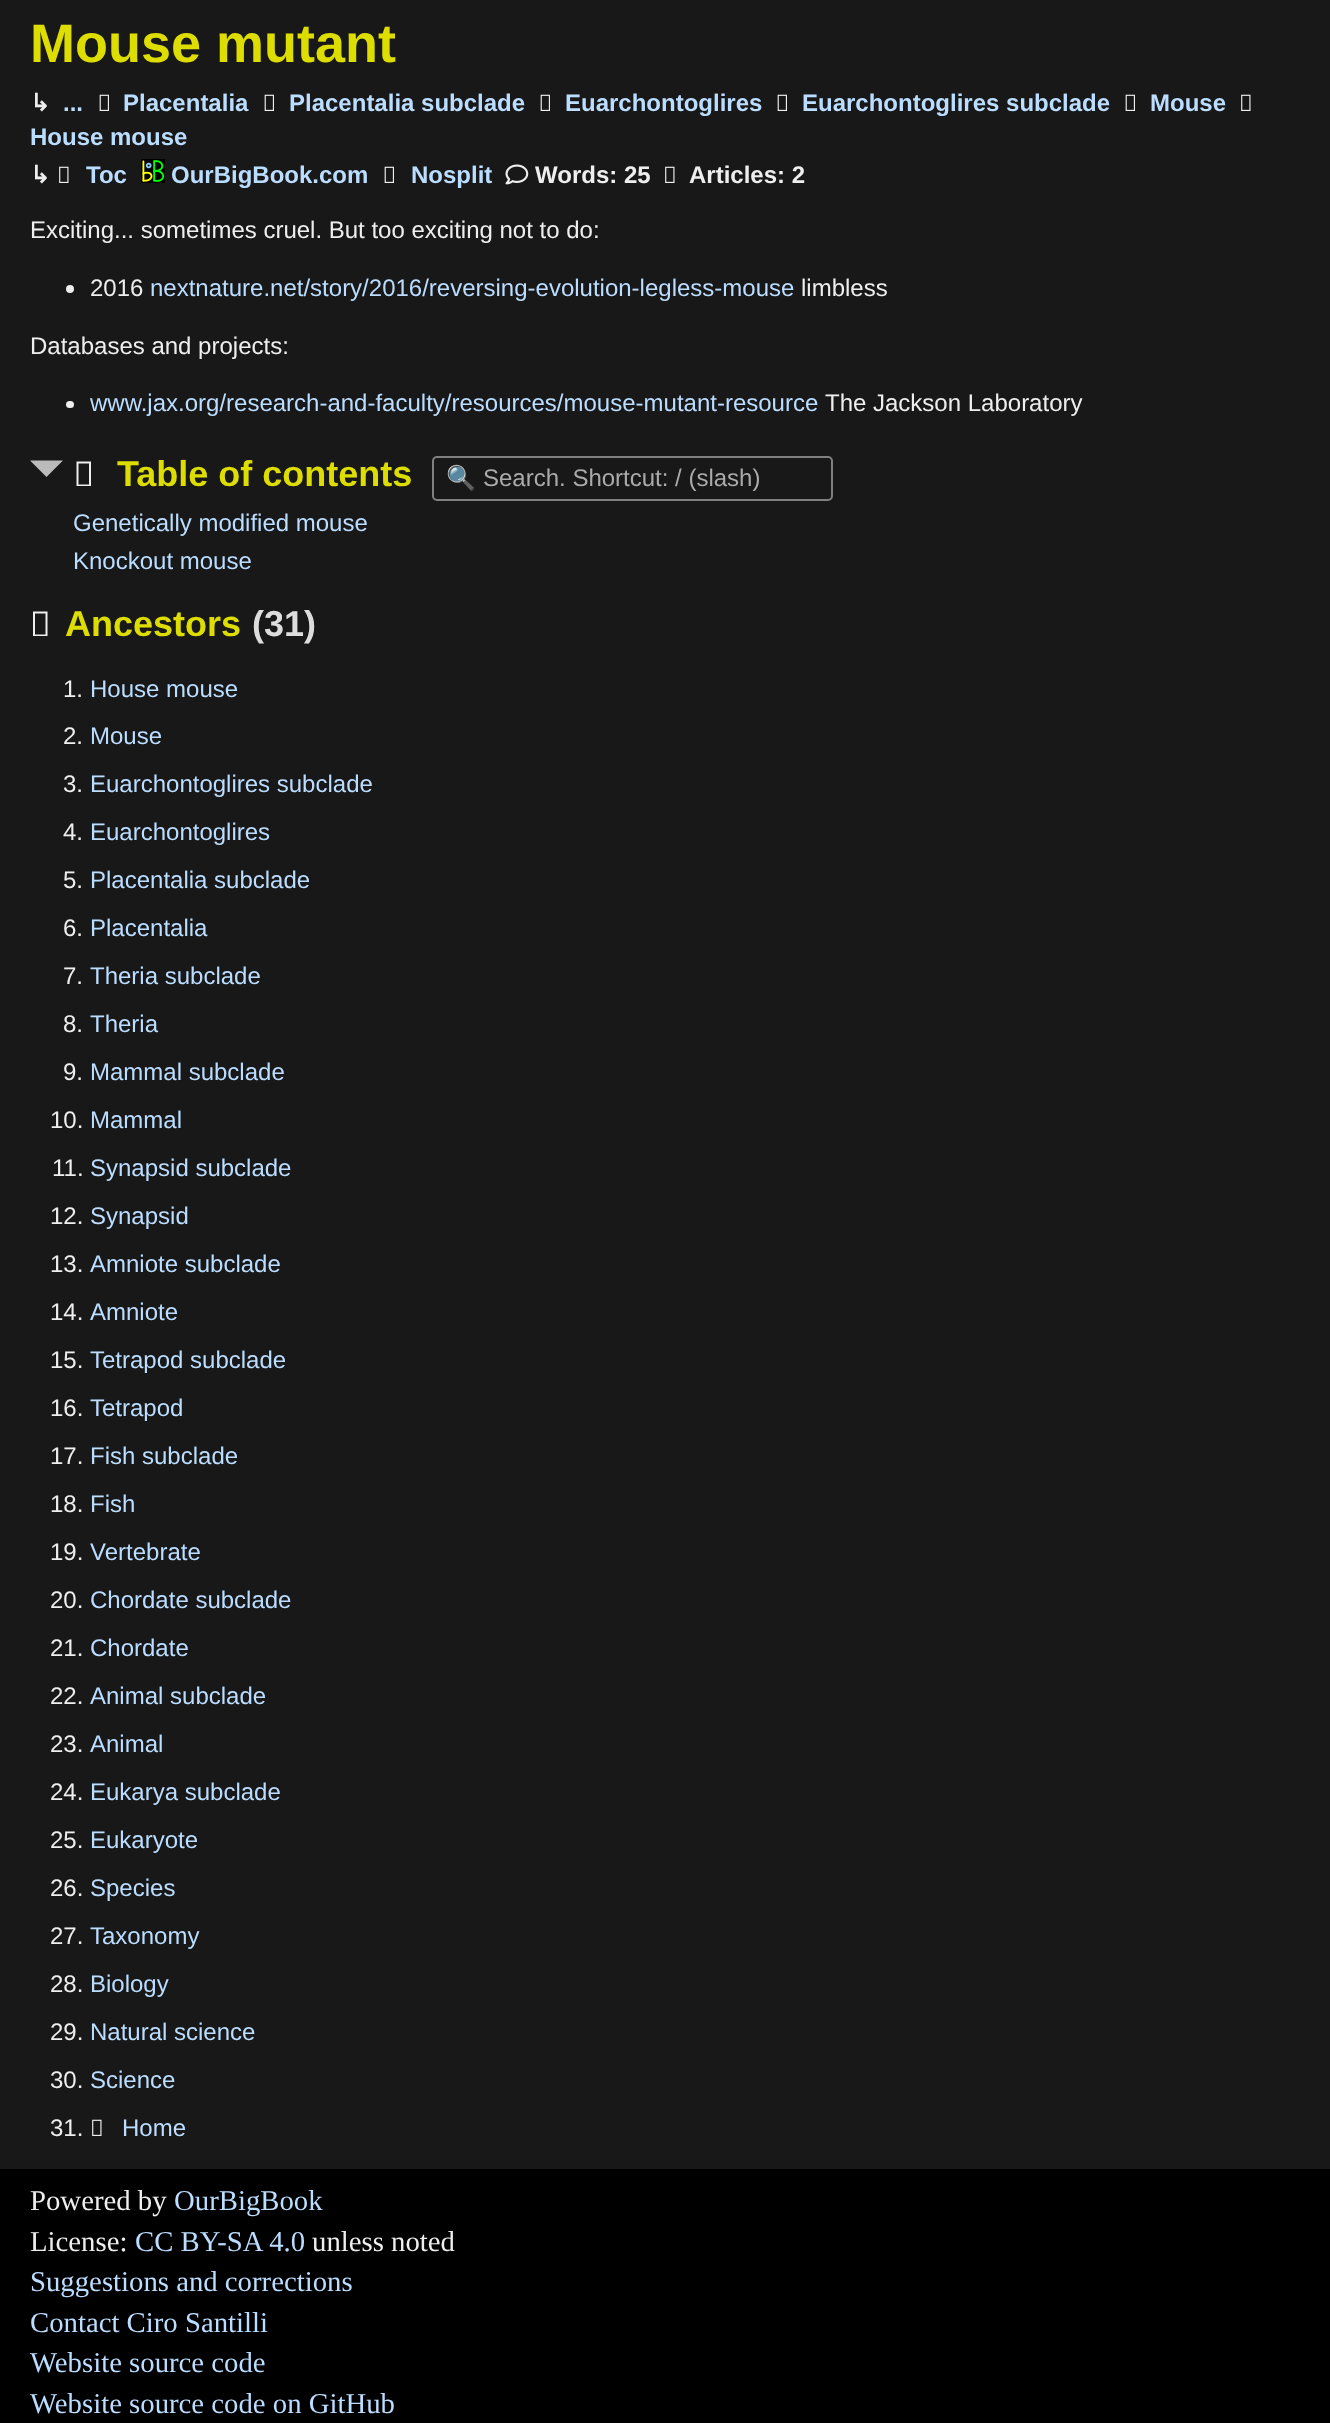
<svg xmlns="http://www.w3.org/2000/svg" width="1330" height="2423">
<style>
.a{font:bold 54px Liberation Sans;fill:#dd0}
.b{font:bold 24px DejaVu Sans;fill:#eee}
.c{font:bold 24px Liberation Sans;fill:#bdf}
.d{font:bold 24px Liberation Sans;fill:#eee}
.e{font:24px Liberation Sans;fill:#eee}
.f{font:24px Liberation Sans;fill:#bdf}
.g{font:bold 36px Liberation Sans;fill:#dd0}
.h{font:24px Noto Color Emoji;fill:#aaa}
.i{font:24px Liberation Sans;fill:#aaa}
.j{font:bold 36px Liberation Sans;fill:#ddd}
.k{font:28.75px Liberation Serif;fill:#eee}
.l{font:28.75px Liberation Serif;fill:#bdf}
</style>
<rect width="100%" height="100%" fill="#181818"/>
<image href="1.png" x="99" y="94" width="10" height="17"/>
<image href="1.png" x="264" y="94" width="10" height="17"/>
<image href="1.png" x="540" y="94" width="10" height="17"/>
<image href="1.png" x="777" y="94" width="10" height="17"/>
<image href="1.png" x="1125" y="94" width="10" height="17"/>
<image href="2.png" x="1241" y="94" width="10" height="17"/>
<image href="2.png" x="59" y="166" width="10" height="17"/>
<image href="3.png" x="141" y="159" width="24" height="24"/>
<image href="1.png" x="384" y="166" width="10" height="17"/>
<image href="4.png" x="505" y="164" width="24" height="21"/>
<image href="2.png" x="665" y="166" width="10" height="17"/>
<circle fill="#eee" cx="70" cy="289" r="4"/>
<rect fill="#eee" x="66" y="401" width="8" height="7" rx="3.5"/>
<path fill="#bbb" d="M30 460.5h33l-16.5 16.5z"/>
<path fill="#eee" d="M76.5 486v-24.5h14.5v24.5zm2-1.5h10.5v-21h-10.5z"/>
<rect fill="none" stroke="#808080" stroke-width="2" x="433" y="457" width="399" height="43" rx="4"/>
<path fill="#eee" d="M33 636v-24.5h14.5v24.5zm2-1.5h10.5v-21h-10.5z"/>
<image href="2.png" x="92" y="2119" width="10" height="17"/>
<path fill="#000" d="M0 2169h1330v254H0z"/>
<text class="a" x="30" y="62">Mouse mutant</text>
<text class="b" x="30" y="111">↳</text>
<text class="c" x="63" y="111">...</text>
<text class="c" x="123" y="111">Placentalia</text>
<text class="c" x="289" y="111">Placentalia subclade</text>
<text class="c" x="565" y="111">Euarchontoglires</text>
<text class="c" x="802" y="111">Euarchontoglires subclade</text>
<text class="c" x="1150" y="111">Mouse</text>
<text class="c" x="30" y="145">House mouse</text>
<text class="b" x="30" y="183">↳</text>
<text class="c" x="86" y="183">Toc</text>
<text class="c" x="171" y="183">OurBigBook.com</text>
<text class="c" x="411" y="183">Nosplit</text>
<text class="d" x="535" y="183">Words: 25</text>
<text class="d" x="689" y="183">Articles: 2</text>
<text class="e" x="30" y="238">Exciting... sometimes cruel. But too exciting not to do:</text>
<text class="e" x="90" y="296">2016</text>
<text class="f" x="150" y="296">nextnature.net/story/2016/reversing-evolution-legless-mouse</text>
<text class="e" x="801" y="296">limbless</text>
<text class="e" x="30" y="354">Databases and projects:</text>
<text class="f" x="90" y="411">www.jax.org/research-and-faculty/resources/mouse-mutant-resource</text>
<text class="e" x="825" y="411">The Jackson Laboratory</text>
<text class="g" x="117" y="486">Table of contents</text>
<text class="h" x="446" y="486">🔍</text>
<text class="i" x="483" y="486">Search. Shortcut: / (slash)</text>
<text class="f" x="73" y="531">Genetically modified mouse</text>
<text class="f" x="73" y="569">Knockout mouse</text>
<text class="g" x="65" y="636">Ancestors</text>
<text class="j" x="252" y="636">(31)</text>
<text class="e" x="63" y="697">1.</text>
<text class="f" x="90" y="697">House mouse</text>
<text class="e" x="63" y="744">2.</text>
<text class="f" x="90" y="744">Mouse</text>
<text class="e" x="63" y="792">3.</text>
<text class="f" x="90" y="792">Euarchontoglires subclade</text>
<text class="e" x="63" y="840">4.</text>
<text class="f" x="90" y="840">Euarchontoglires</text>
<text class="e" x="63" y="888">5.</text>
<text class="f" x="90" y="888">Placentalia subclade</text>
<text class="e" x="63" y="936">6.</text>
<text class="f" x="90" y="936">Placentalia</text>
<text class="e" x="63" y="984">7.</text>
<text class="f" x="90" y="984">Theria subclade</text>
<text class="e" x="63" y="1032">8.</text>
<text class="f" x="90" y="1032">Theria</text>
<text class="e" x="63" y="1080">9.</text>
<text class="f" x="90" y="1080">Mammal subclade</text>
<text class="e" x="50" y="1128">10.</text>
<text class="f" x="90" y="1128">Mammal</text>
<text class="e" x="52" y="1176">11.</text>
<text class="f" x="90" y="1176">Synapsid subclade</text>
<text class="e" x="50" y="1224">12.</text>
<text class="f" x="90" y="1224">Synapsid</text>
<text class="e" x="50" y="1272">13.</text>
<text class="f" x="90" y="1272">Amniote subclade</text>
<text class="e" x="50" y="1320">14.</text>
<text class="f" x="90" y="1320">Amniote</text>
<text class="e" x="50" y="1368">15.</text>
<text class="f" x="90" y="1368">Tetrapod subclade</text>
<text class="e" x="50" y="1416">16.</text>
<text class="f" x="90" y="1416">Tetrapod</text>
<text class="e" x="50" y="1464">17.</text>
<text class="f" x="90" y="1464">Fish subclade</text>
<text class="e" x="50" y="1512">18.</text>
<text class="f" x="90" y="1512">Fish</text>
<text class="e" x="50" y="1560">19.</text>
<text class="f" x="90" y="1560">Vertebrate</text>
<text class="e" x="50" y="1608">20.</text>
<text class="f" x="90" y="1608">Chordate subclade</text>
<text class="e" x="50" y="1656">21.</text>
<text class="f" x="90" y="1656">Chordate</text>
<text class="e" x="50" y="1704">22.</text>
<text class="f" x="90" y="1704">Animal subclade</text>
<text class="e" x="50" y="1752">23.</text>
<text class="f" x="90" y="1752">Animal</text>
<text class="e" x="50" y="1800">24.</text>
<text class="f" x="90" y="1800">Eukarya subclade</text>
<text class="e" x="50" y="1848">25.</text>
<text class="f" x="90" y="1848">Eukaryote</text>
<text class="e" x="50" y="1896">26.</text>
<text class="f" x="90" y="1896">Species</text>
<text class="e" x="50" y="1944">27.</text>
<text class="f" x="90" y="1944">Taxonomy</text>
<text class="e" x="50" y="1992">28.</text>
<text class="f" x="90" y="1992">Biology</text>
<text class="e" x="50" y="2040">29.</text>
<text class="f" x="90" y="2040">Natural science</text>
<text class="e" x="50" y="2088">30.</text>
<text class="f" x="90" y="2088">Science</text>
<text class="e" x="50" y="2136">31.</text>
<text class="f" x="122" y="2136">Home</text>
<text class="k" x="30" y="2210">Powered by</text>
<text class="l" x="174" y="2210">OurBigBook</text>
<text class="k" x="30" y="2251">License:</text>
<text class="l" x="135" y="2251">CC BY-SA 4.0</text>
<text class="k" x="312" y="2251">unless noted</text>
<text class="l" x="30" y="2291">Suggestions and corrections</text>
<text class="l" x="30" y="2332">Contact Ciro Santilli</text>
<text class="l" x="30" y="2372">Website source code</text>
<text class="l" x="30" y="2413">Website source code on GitHub</text>
</svg>
